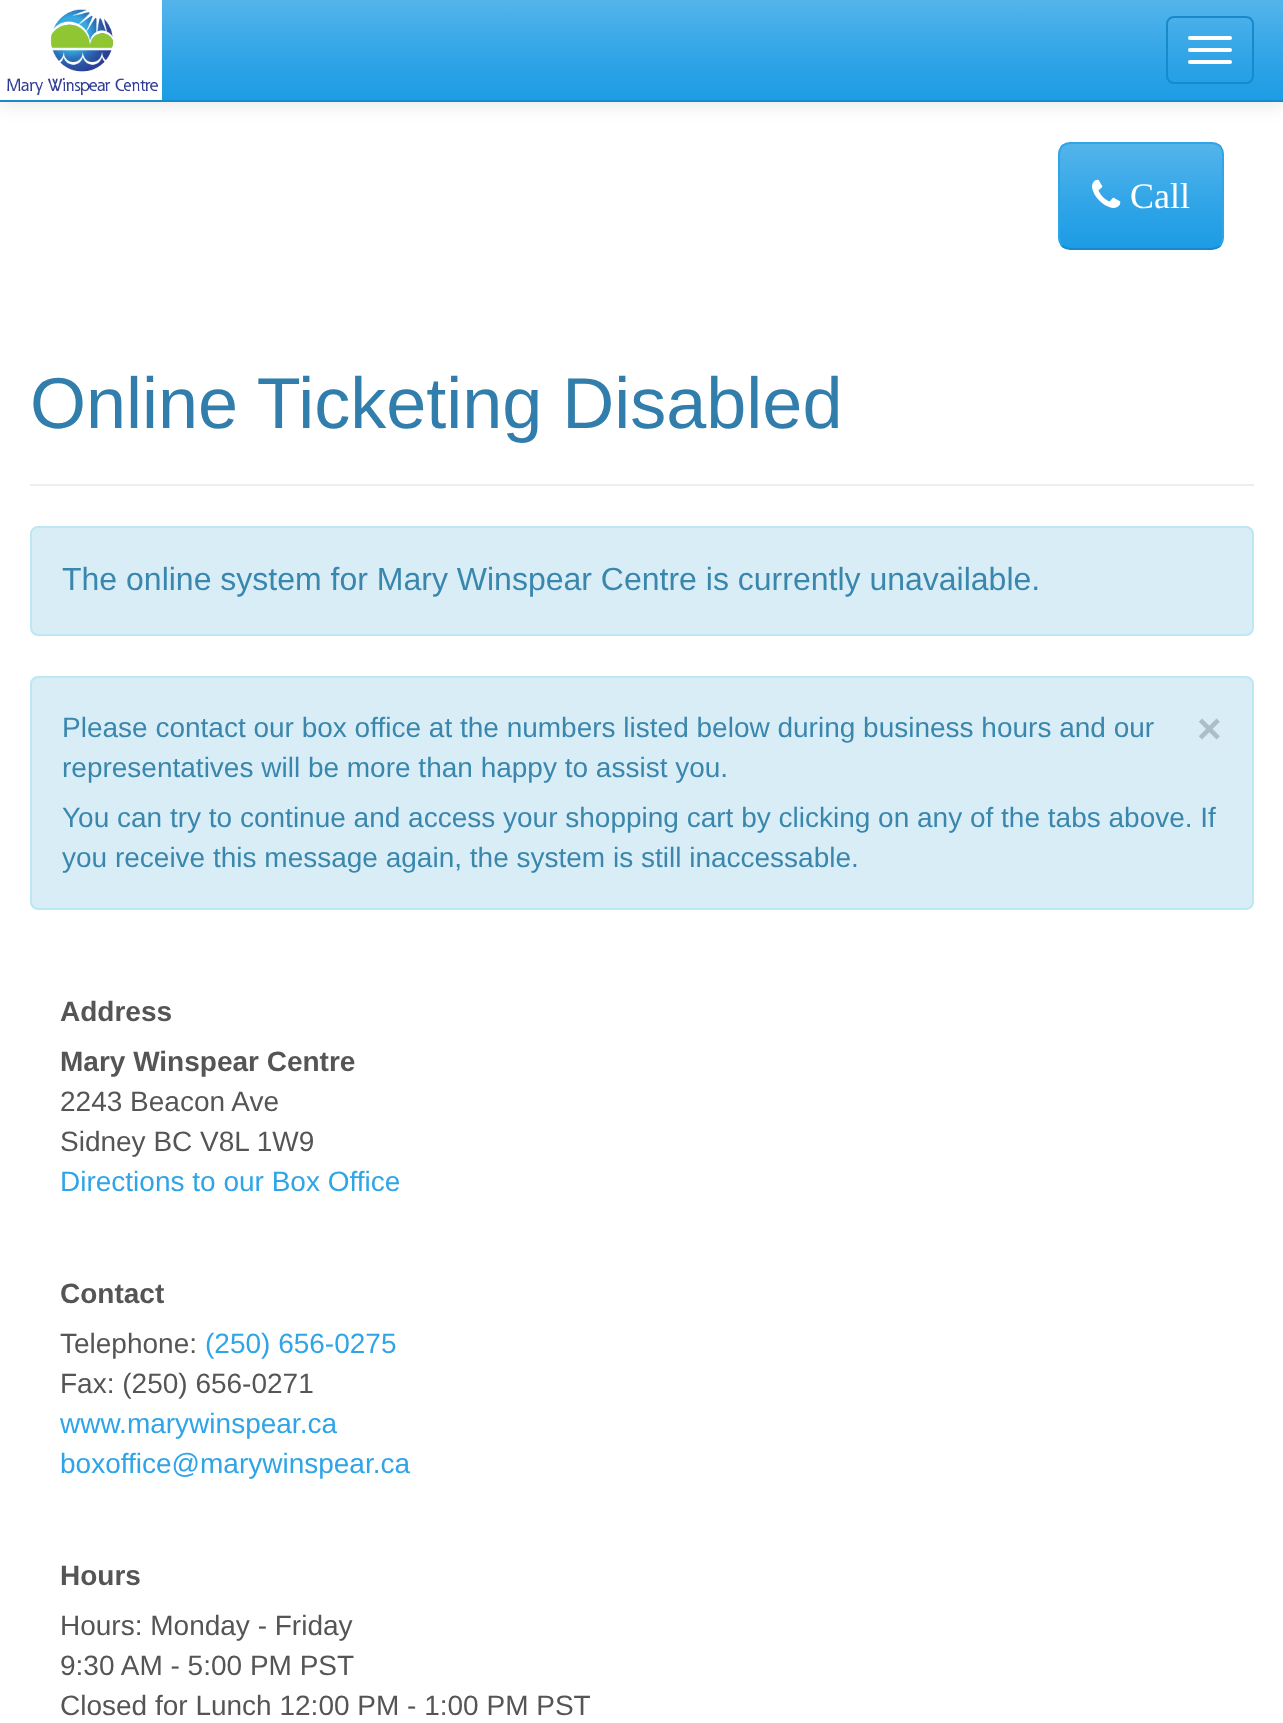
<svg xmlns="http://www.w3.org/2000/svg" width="1283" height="1723">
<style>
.a{font:36px Liberation Serif;fill:#fff}
.b{font:72px Liberation Sans;fill:#317eac}
.c{font:32px Liberation Sans;fill:#3a87ad}
.d{font:28px Liberation Sans;fill:#3a87ad}
.e{font:bold 42px Liberation Sans;fill:#aebec6}
.f{font:bold 28px Liberation Sans;fill:#555}
.g{font:28px Liberation Sans;fill:#555}
.h{font:28px Liberation Sans;fill:#2fa4e7}
</style>
<defs>
<linearGradient id="g1" gradientUnits="userSpaceOnUse" x1="642" y1="0" x2="642" y2="100"><stop offset="0" stop-color="#54b4eb"/><stop offset="0.6" stop-color="#2fa4e7"/><stop offset="1" stop-color="#1d9ce5"/></linearGradient>
<clipPath id="clip1"><rect x="1058" y="142" width="166" height="108" rx="12"/></clipPath>
<linearGradient id="g2" gradientUnits="userSpaceOnUse" x1="1141" y1="144" x2="1141" y2="248"><stop offset="0" stop-color="#54b4eb"/><stop offset="0.6" stop-color="#2fa4e7"/><stop offset="1" stop-color="#1d9ce5"/></linearGradient>
</defs>
<rect width="100%" height="100%" fill="#fff"/>
<path fill="#0000001a" filter="blur(10px)" d="M0 2h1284v102H0z"/>
<path fill="url(#g1)" d="M162 0h1121v100H162z"/>
<path fill="#178acc" d="M0 100h1283v2H0z"/>
<image href="1.png" x="0" y="0" width="162" height="100"/>
<rect fill="none" stroke="#178acc" stroke-width="2" x="1167" y="17" width="86" height="66" rx="7"/>
<rect fill="#fff" x="1188" y="36" width="44" height="4" rx="2"/>
<rect fill="#fff" x="1188" y="48" width="44" height="4" rx="2"/>
<rect fill="#fff" x="1188" y="60" width="44" height="4" rx="2"/>
<g clip-path="url(#clip1)">
<path fill="url(#g2)" d="M1060 144h162v104H1060z"/>
</g>
<path fill="none" stroke="#178acc" stroke-width="2" d="M1220 246c-2.5 2-5 3-8 3h-142c-3 0-5.5-1-8-3"/>
<path fill="none" stroke="#2fa4e7" stroke-width="2" d="M1062 246c-2-2.5-3-5-3-8v-84c0-3 1-5.5 3-8c2.5-2 5-3 8-3h142c3 0 5.5 1 8 3c2 2.5 3 5 3 8v84c0 3-1 5.5-3 8"/>
<image href="2.png" x="1092" y="179" width="29" height="29"/>
<path fill="#eee" d="M30 484h1224v2H30z"/>
<rect fill="#d9edf7" stroke="#bce8f1" stroke-width="2" x="31" y="527" width="1222" height="108" rx="7"/>
<rect fill="#d9edf7" stroke="#bce8f1" stroke-width="2" x="31" y="677" width="1222" height="232" rx="7"/>
<text class="a" x="1130" y="208">Call</text>
<text class="b" x="30" y="428">Online Ticketing Disabled</text>
<text class="c" x="62" y="590">The online system for Mary Winspear Centre is currently unavailable.</text>
<text class="d" x="62" y="737">Please contact our box office at the numbers listed below during business hours and our</text>
<text class="d" x="62" y="777">representatives will be more than happy to assist you.</text>
<text class="e" x="1197" y="743">×</text>
<text class="d" x="62" y="827">You can try to continue and access your shopping cart by clicking on any of the tabs above. If</text>
<text class="d" x="62" y="867">you receive this message again, the system is still inaccessable.</text>
<text class="f" x="60" y="1021">Address</text>
<text class="f" x="60" y="1071">Mary Winspear Centre</text>
<text class="g" x="60" y="1111">2243 Beacon Ave</text>
<text class="g" x="60" y="1151">Sidney BC V8L 1W9</text>
<text class="h" x="60" y="1191">Directions to our Box Office</text>
<text class="f" x="60" y="1303">Contact</text>
<text class="g" x="60" y="1353">Telephone:</text>
<text class="h" x="205" y="1353">(250) 656-0275</text>
<text class="g" x="60" y="1393">Fax: (250) 656-0271</text>
<text class="h" x="60" y="1433">www.marywinspear.ca</text>
<text class="h" x="60" y="1473">boxoffice@marywinspear.ca</text>
<text class="f" x="60" y="1585">Hours</text>
<text class="g" x="60" y="1635">Hours: Monday - Friday</text>
<text class="g" x="60" y="1675">9:30 AM - 5:00 PM PST</text>
<text class="g" x="60" y="1715">Closed for Lunch 12:00 PM - 1:00 PM PST</text>
</svg>
